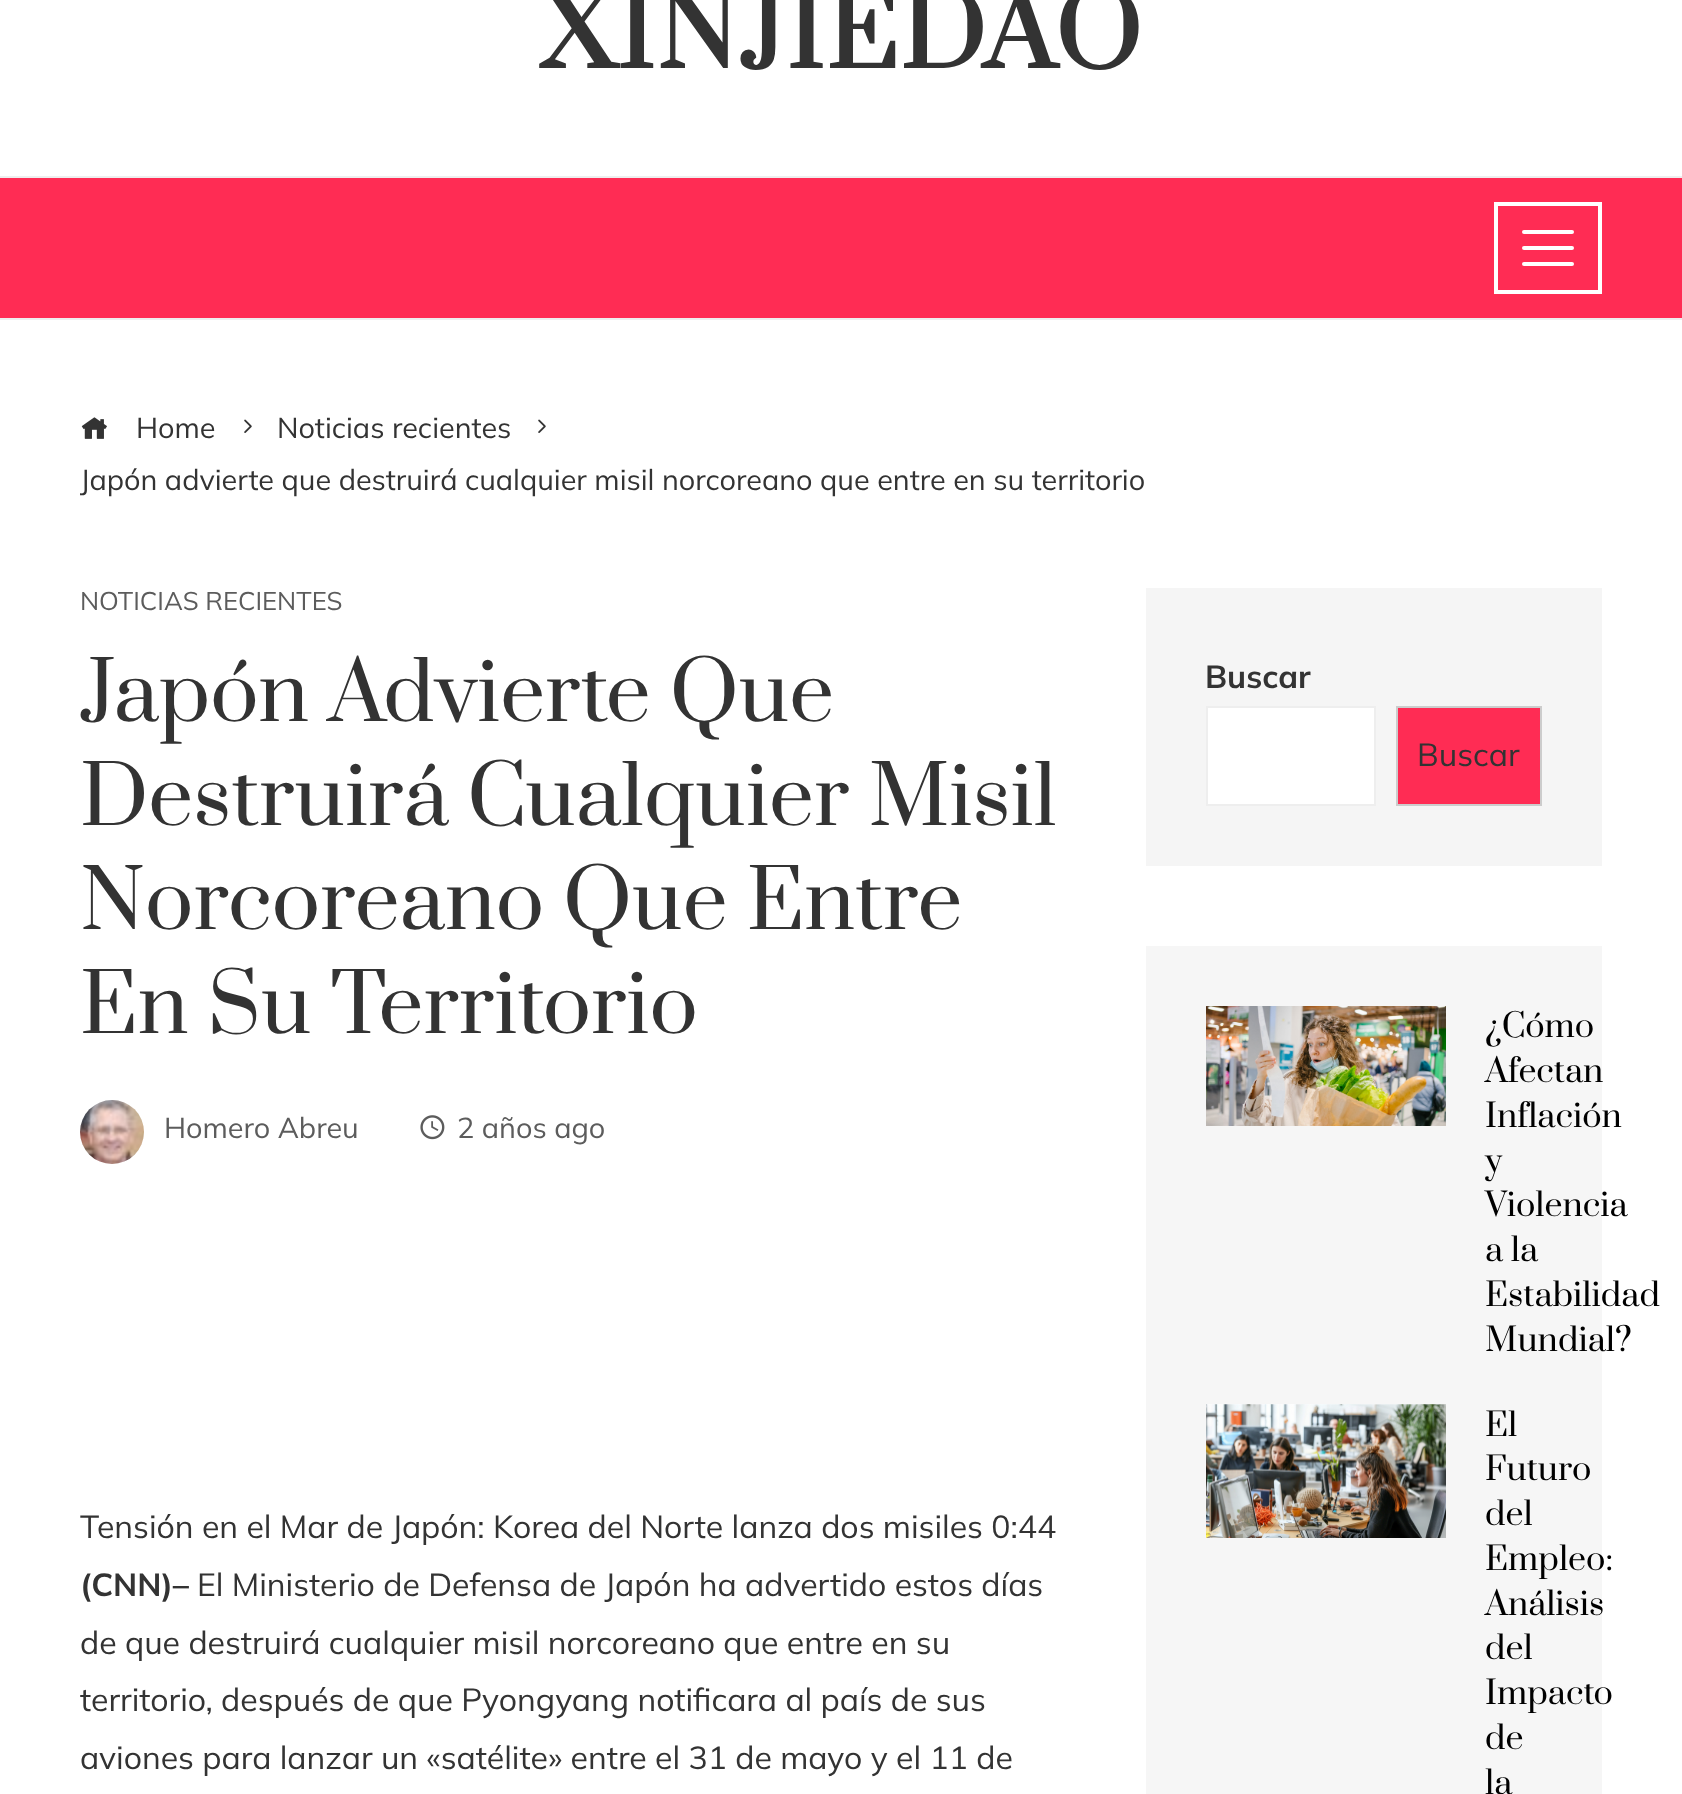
<svg xmlns="http://www.w3.org/2000/svg" width="1682" height="1794">
<style>
.a{font:bold 100px Prata;letter-spacing:2px;fill:#333}
.b{font:28.8px Mulish;fill:#333}
.c{font:25.6px Mulish;fill:#5c5c5c}
.d{font:80px Prata;fill:#333}
.e{font:28.8px Mulish;fill:#5c5c5c}
.f{font:32px Mulish;fill:#333}
.g{font:bold 32px Mulish;fill:#333}
.h{font:32px Prata;fill:#000}
</style>
<rect width="100%" height="100%" fill="#fff"/>
<path fill="#ff2c54" d="M0 178h1682v140H0z"/>
<path fill="#eee" d="M0 176h1682v2H0z"/>
<path fill="#eee" d="M0 318h1682v2H0z"/>
<path fill="none" stroke="#fff" stroke-width="4" d="M1496 204h104v88H1496z"/>
<rect fill="#fff" x="1522" y="230" width="52" height="4" rx="2"/>
<rect fill="#fff" x="1522" y="246" width="52" height="4" rx="2"/>
<rect fill="#fff" x="1522" y="262" width="52" height="4" rx="2"/>
<image href="1.png" x="81" y="417" width="26" height="22"/>
<image href="2.png" x="244" y="419" width="8" height="14"/>
<image href="2.png" x="538" y="419" width="8" height="14"/>
<image href="3.png" x="80" y="1100" width="64" height="64"/>
<image href="4.png" x="420" y="1115" width="25" height="25"/>
<path fill="#f5f5f5" d="M1146 588h456v278H1146z"/>
<path fill="#fff" stroke="#eee" stroke-width="2" d="M1207 707h168v98H1207z"/>
<path fill="#ff2c54" stroke="#ccc" stroke-width="2" d="M1397 707h144v98H1397z"/>
<path fill="#f6f6f6" d="M1146 946h456v848H1146z"/>
<image href="5.png" x="1206" y="1006" width="240" height="120"/>
<image href="6.png" x="1206" y="1404" width="240" height="134"/>
<text class="a" x="539" y="68">XINJIEDAO</text>
<text class="b" x="136" y="438">Home</text>
<text class="b" x="277" y="438">Noticias recientes</text>
<text class="b" x="80" y="490">Japón advierte que destruirá cualquier misil norcoreano que entre en su territorio</text>
<text class="c" x="80" y="610">NOTICIAS RECIENTES</text>
<text class="d" x="80" y="721">Japón Advierte Que</text>
<text class="d" x="80" y="825">Destruirá Cualquier Misil</text>
<text class="d" x="80" y="929">Norcoreano Que Entre</text>
<text class="d" x="80" y="1033">En Su Territorio</text>
<text class="e" x="164" y="1138">Homero Abreu</text>
<text class="e" x="457" y="1138">2 años ago</text>
<text class="f" x="80" y="1538">Tensión en el Mar de Japón: Korea del Norte lanza dos misiles 0:44</text>
<text class="g" x="80" y="1596">(CNN)–</text>
<text class="f" x="197" y="1596">El Ministerio de Defensa de Japón ha advertido estos días</text>
<text class="f" x="80" y="1654">de que destruirá cualquier misil norcoreano que entre en su</text>
<text class="f" x="80" y="1711">territorio, después de que Pyongyang notificara al país de sus</text>
<text class="f" x="80" y="1769">aviones para lanzar un «satélite» entre el 31 de mayo y el 11 de</text>
<text class="g" x="1205" y="688">Buscar</text>
<text class="f" x="1417" y="766">Buscar</text>
<text class="h" x="1485" y="1037">¿Cómo</text>
<text class="h" x="1485" y="1082">Afectan</text>
<text class="h" x="1485" y="1127">Inflación</text>
<text class="h" x="1485" y="1172">y</text>
<text class="h" x="1485" y="1216">Violencia</text>
<text class="h" x="1485" y="1261">a la</text>
<text class="h" x="1485" y="1306">Estabilidad</text>
<text class="h" x="1485" y="1351">Mundial?</text>
<text class="h" x="1485" y="1436">El</text>
<text class="h" x="1485" y="1480">Futuro</text>
<text class="h" x="1485" y="1525">del</text>
<text class="h" x="1485" y="1570">Empleo:</text>
<text class="h" x="1485" y="1615">Análisis</text>
<text class="h" x="1485" y="1659">del</text>
<text class="h" x="1485" y="1704">Impacto</text>
<text class="h" x="1485" y="1749">de</text>
<text class="h" x="1485" y="1794">la</text>
</svg>
